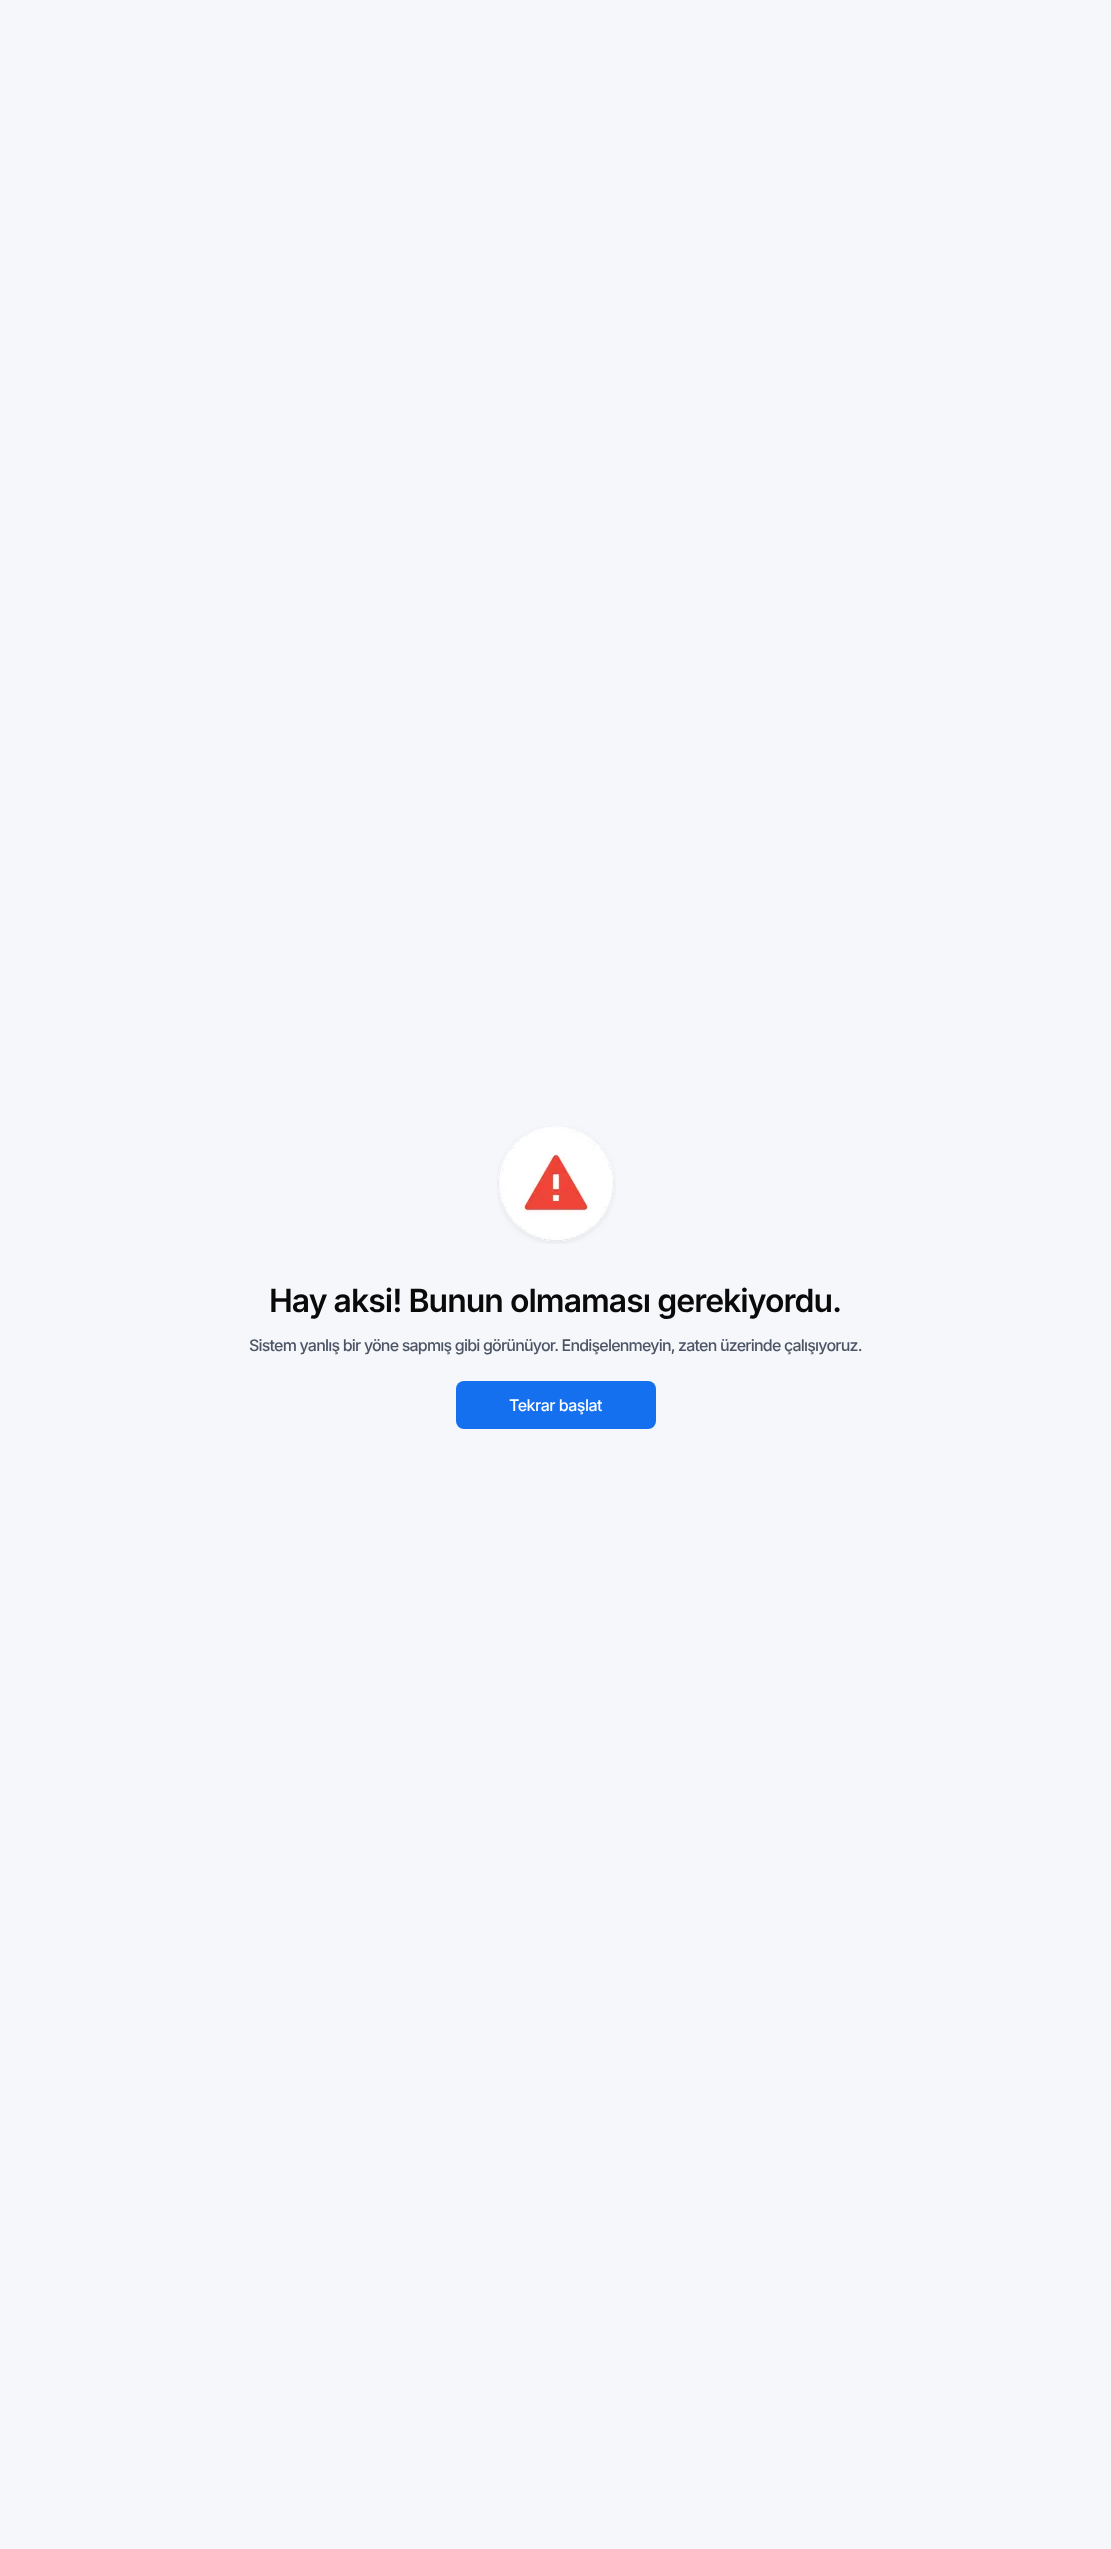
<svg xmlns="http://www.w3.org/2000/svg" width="1111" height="2549">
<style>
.a{font:600 32px Inter;letter-spacing:-1px;fill:#0a0a0a}
.b{font:500 16px Inter;letter-spacing:-0.8px;fill:#4b5565}
.c{font:500 16px Inter;letter-spacing:-0.5px;fill:#fff}
</style>
<rect width="100%" height="100%" fill="#f5f7fa"/>
<image href="1.png" x="497" y="1126" width="119" height="118"/>
<rect fill="#1570ef" x="456" y="1381" width="200" height="48" rx="8"/>
<text class="a" x="269" y="1312">Hay aksi! Bunun olmaması gerekiyordu.</text>
<text class="b" x="249" y="1351">Sistem yanlış bir yöne sapmış gibi görünüyor. Endişelenmeyin, zaten üzerinde çalışıyoruz.</text>
<text class="c" x="509" y="1411">Tekrar başlat</text>
</svg>
